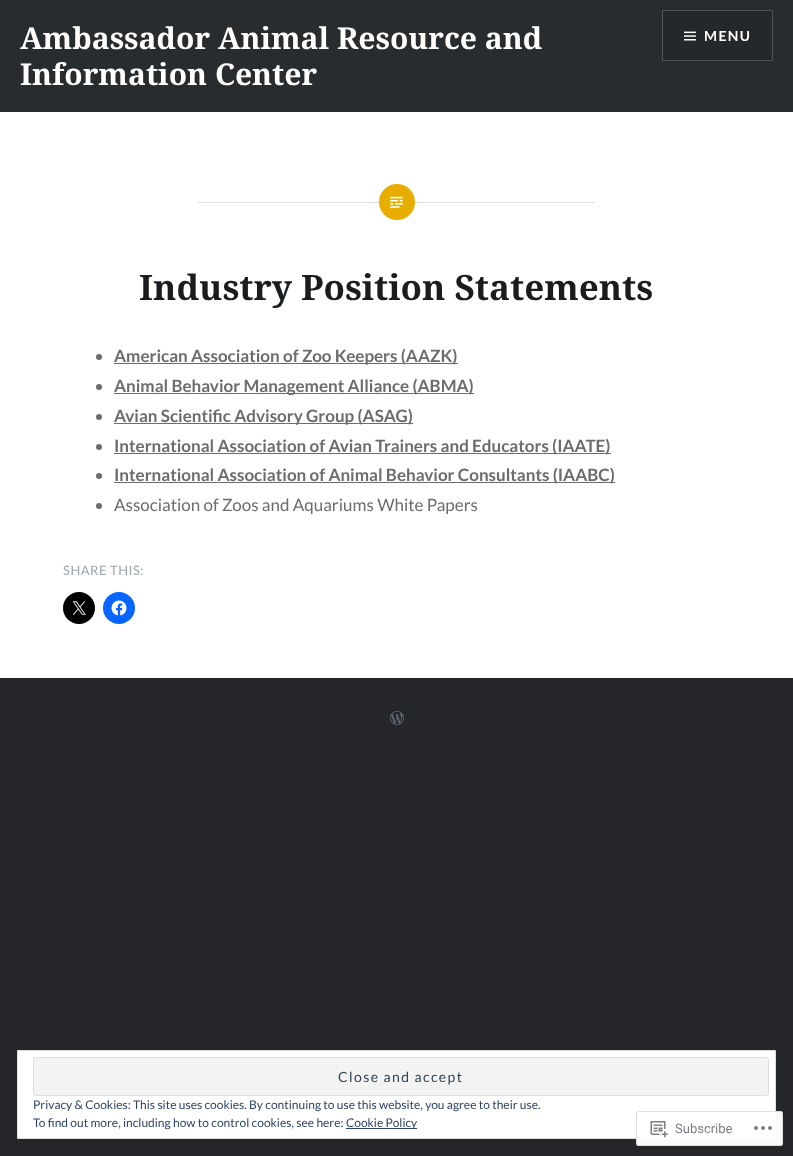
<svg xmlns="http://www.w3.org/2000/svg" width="793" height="1156">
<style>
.a{font:bold 30px Noto Serif;fill:#fff}
.b{font:bold 14px Lato;letter-spacing:1.4px;fill:#fff}
.c{font:bold 35px Noto Serif;fill:#1a1c1e}
.d{font:bold 17px Lato;fill:#6a6c6e}
.e{font:17px Lato;fill:#6a6c6e}
.f{font:13px Lato;letter-spacing:0.5px;fill:#9da5ad}
.g{font:14px Lato;letter-spacing:1.4px;fill:#2e4453}
.h{font:12px Lato;fill:#2e4467}
.i{font:13px Roboto;fill:#7b7f85}
</style>
<rect width="100%" height="100%" fill="#242629"/>
<path fill="#fff" d="M0 112h793v566H0z"/>
<path fill="#292c2f" d="M0 0h793v112H0z"/>
<path fill="#25282a" stroke="#515355" d="M662.5 10.5h110v50H662.5z"/>
<image href="1.png" x="684" y="31" width="12" height="10"/>
<path fill="#e0e0e0" d="M198 202h397v1H198z"/>
<circle fill="#e7ae01" cx="397" cy="202" r="18"/>
<image href="2.png" x="390" y="196" width="13" height="12"/>
<circle fill="#6a6c6e" cx="99" cy="357" r="3"/>
<path fill="#6a6c6e" d="M114 363h344v1H114z"/>
<circle fill="#6a6c6e" cx="99" cy="387" r="3"/>
<path fill="#6a6c6e" d="M114 393h360v1H114z"/>
<circle fill="#6a6c6e" cx="99" cy="417" r="3"/>
<path fill="#6a6c6e" d="M114 423h299v1H114z"/>
<circle fill="#6a6c6e" cx="99" cy="447" r="3"/>
<path fill="#6a6c6e" d="M114 453h497v1H114z"/>
<circle fill="#6a6c6e" cx="99" cy="476" r="3"/>
<path fill="#6a6c6e" d="M114 482h501v1H114z"/>
<circle fill="#6a6c6e" cx="99" cy="506" r="3"/>
<circle fill="#000" cx="79" cy="608" r="16"/>
<image href="3.png" x="72" y="601" width="14" height="14"/>
<circle fill="#0866ff" cx="119" cy="608" r="16"/>
<image href="4.png" x="111" y="600" width="16" height="16"/>
<image href="5.png" x="390" y="711" width="14" height="14"/>
<path fill="#fff" stroke="#dedede" d="M17.5 1050.5h758v88H17.5z"/>
<rect fill="#f3f3f3" stroke="#dedede" x="33.5" y="1057.5" width="735" height="38" rx="2.5"/>
<path fill="#2e4467" d="M346 1128h71v1H346z"/>
<rect fill="#fffffffa" x="636" y="1111" width="147" height="35" rx="3"/>
<rect fill="none" stroke="#dcdcdefa" x="636.5" y="1111.5" width="146" height="34" rx="2.5"/>
<image href="6.png" x="650" y="1121" width="18" height="17"/>
<image href="7.png" x="754" y="1126" width="18" height="4"/>
<text class="a" x="20" y="49">Ambassador Animal Resource and</text>
<text class="a" x="20" y="85">Information Center</text>
<text class="b" x="704" y="41">MENU</text>
<text class="c" x="139" y="300">Industry Position Statements</text>
<text class="d" x="114" y="362">American Association of Zoo Keepers (AAZK)</text>
<text class="d" x="114" y="392">Animal Behavior Management Alliance (ABMA)</text>
<text class="d" x="114" y="422">Avian Scientific Advisory Group (ASAG)</text>
<text class="d" x="114" y="452">International Association of Avian Trainers and Educators (IAATE)</text>
<text class="d" x="114" y="481">International Association of Animal Behavior Consultants (IAABC)</text>
<text class="e" x="114" y="511">Association of Zoos and Aquariums White Papers</text>
<text class="f" x="63" y="575">SHARE THIS:</text>
<text class="g" x="338" y="1082">Close and accept</text>
<text class="h" x="33" y="1109">Privacy &amp; Cookies: This site uses cookies. By continuing to use this website, you agree to their use.</text>
<text class="h" x="33" y="1127">To find out more, including how to control cookies, see here:</text>
<text class="h" x="346" y="1127">Cookie Policy</text>
<text class="i" x="675" y="1133">Subscribe</text>
</svg>
